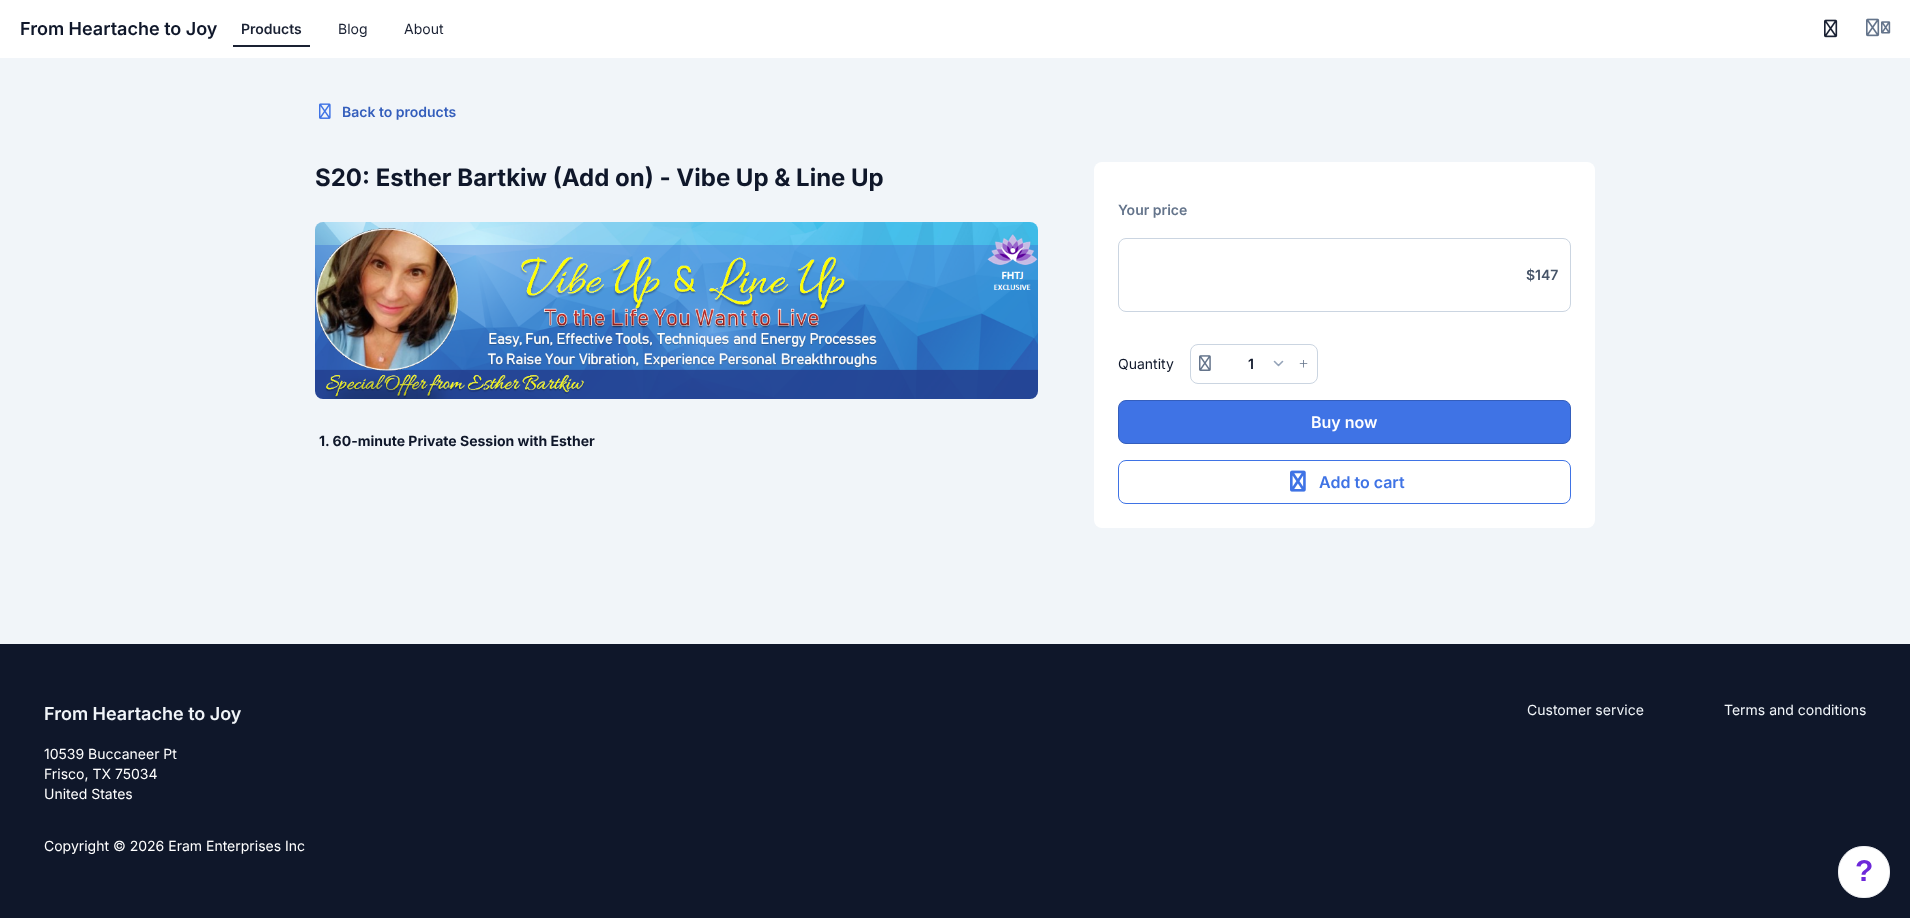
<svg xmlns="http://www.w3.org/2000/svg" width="1910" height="918">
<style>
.a{font:600 18px Inter;fill:#0f172a}
.b{font:600 14px Inter;fill:#1a2133}
.c{font:14px Inter;fill:#1a2133}
.d{font:600 14px Inter;fill:#345ebc}
.e{font:bold 24px Inter;fill:#0f172a}
.f{font:bold 14px Inter;fill:#0f172a}
.g{font:600 14px Inter;fill:#64748b}
.h{font:600 14px Inter;fill:#475569}
.i{font:14px Inter;fill:#0f172a}
.j{font:600 14px Inter;fill:#0f172a}
.k{font:16px Liberation Serif;fill:#64748b}
.l{font:600 16px Inter;fill:#fff}
.m{font:600 16px Inter;fill:#3f73e5}
.n{font:600 18px Inter;fill:#f1f5f9}
.o{font:14px Inter;fill:#fff}
.p{font:14px Inter;fill:#f1f5f9}
.q{font:bold 30px Liberation Sans;fill:#6d28d9}
</style>
<rect width="100%" height="100%" fill="#f1f5f9"/>
<path fill="#fff" d="M0 0h1910v58H0z"/>
<path fill="#1a2133" d="M233 45h77v2H233z"/>
<image href="1.png" x="1824" y="19" width="14" height="19"/>
<image href="2.png" x="1866" y="18" width="14" height="19"/>
<image href="3.png" x="1881" y="21" width="10" height="13"/>
<image href="4.png" x="319" y="103" width="12" height="16"/>
<image href="5.png" x="315" y="222" width="723" height="177"/>
<rect fill="#fff" x="1094" y="162" width="501" height="366" rx="8"/>
<rect fill="none" stroke="#cbd5e1" x="1118.5" y="238.5" width="452" height="73" rx="7.5"/>
<rect fill="none" stroke="#cbd5e1" x="1190.5" y="344.5" width="127" height="39" rx="7.5"/>
<image href="6.png" x="1199" y="355" width="12" height="16"/>
<path fill="none" stroke="#94a3b8" stroke-width="1.6" stroke-linecap="round" stroke-linejoin="round" d="M1274.5 361.5l4 4l4-4"/>
<rect fill="#3f73e5" stroke="#345ebc" x="1118.5" y="400.5" width="452" height="43" rx="7.5"/>
<rect fill="none" stroke="#3f73e5" x="1118.5" y="460.5" width="452" height="43" rx="7.5"/>
<image href="7.png" x="1290" y="470" width="16" height="22"/>
<path fill="#0f172a" d="M0 644h1910v274H0z"/>
<rect fill="#fff" stroke="#edeef1" x="1838.5" y="846.5" width="51" height="51" rx="24.5"/>
<text class="a" x="20" y="35">From Heartache to Joy</text>
<text class="b" x="241" y="34">Products</text>
<text class="c" x="338" y="34">Blog</text>
<text class="c" x="404" y="34">About</text>
<text class="d" x="342" y="117">Back to products</text>
<text class="e" x="315" y="186">S20: Esther Bartkiw (Add on) - Vibe Up &amp; Line Up</text>
<text class="f" x="319" y="446">1. 60-minute Private Session with Esther</text>
<text class="g" x="1118" y="215">Your price</text>
<text class="h" x="1526" y="280">$147</text>
<text class="i" x="1118" y="369">Quantity</text>
<text class="j" x="1248" y="369">1</text>
<text class="k" x="1299" y="369">+</text>
<text class="l" x="1311" y="428">Buy now</text>
<text class="m" x="1319" y="488">Add to cart</text>
<text class="n" x="44" y="720">From Heartache to Joy</text>
<text class="o" x="44" y="759">10539 Buccaneer Pt</text>
<text class="o" x="44" y="779">Frisco, TX 75034</text>
<text class="o" x="44" y="799">United States</text>
<text class="p" x="1527" y="715">Customer service</text>
<text class="p" x="1724" y="715">Terms and conditions</text>
<text class="o" x="44" y="851">Copyright © 2026 Eram Enterprises Inc</text>
<text class="q" x="1855" y="881">?</text>
</svg>
